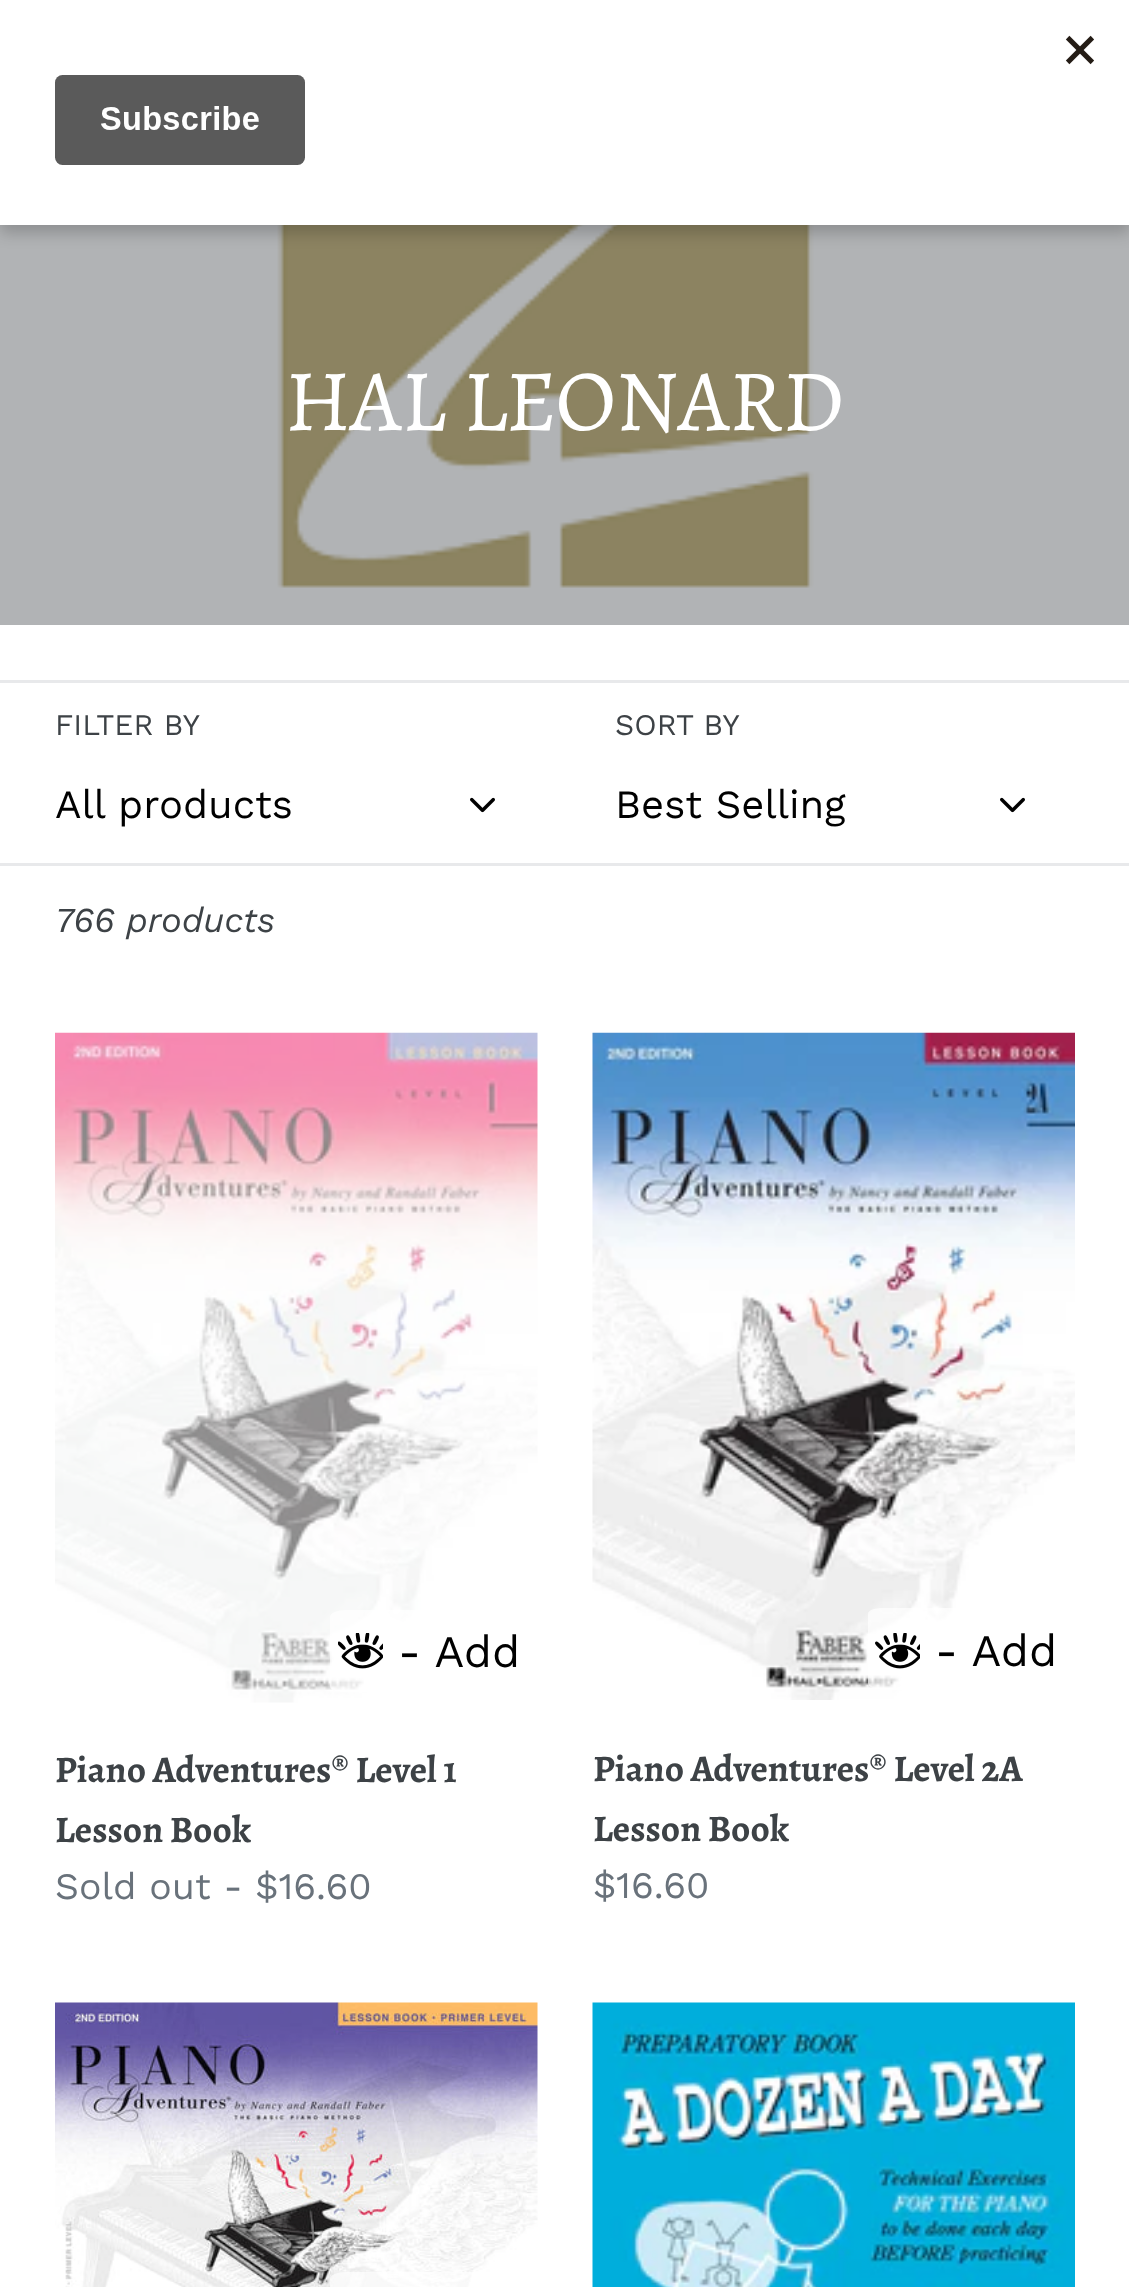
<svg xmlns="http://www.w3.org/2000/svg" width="1129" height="2287">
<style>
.a{font:87.5px Alegreya;fill:#fff}
.b{font:30px Work Sans;fill:#3d4246}
.c{font:40px Work Sans;fill:#000}
.d{font:italic 35px Work Sans;fill:#3d4246}
.e{font:45px Work Sans;fill:#000}
.f{font:bold 37.5px Alegreya;fill:#3d4246}
.g{font:37.5px Work Sans;fill:#69727b}
</style>
<rect width="100%" height="100%" fill="#fff"/>
<path fill="#b1b3b5" d="M0 588h1129v37H0z"/>
<image href="2.png" x="0" y="225" width="1129" height="363"/>
<path fill="#00000033" filter="blur(7.5px)" d="M0 8h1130v225H0z"/>
<path fill="#fff" d="M0 0h1129v225H0z"/>
<image href="1.png" x="55" y="35" width="1039" height="130"/>
<path fill="#e8e9eb" d="M0 680h1129v3H0z"/>
<image href="3.png" x="470" y="797" width="25" height="16"/>
<image href="3.png" x="1000" y="797" width="25" height="16"/>
<path fill="#e8e9eb" d="M0 863h1129v3H0z"/>
<image href="4.png" x="55" y="1032" width="483" height="671"/>
<path fill="#ffffffad" d="M346 1610h166c8 0 16 3 16 7v69c0 4-8 6-16 6h-166c-9 0-16-2-16-6v-69c0-4 7-7 16-7z"/>
<image href="5.png" x="338" y="1633" width="45" height="36"/>
<image href="6.png" x="592" y="1032" width="483" height="668"/>
<path fill="#ffffffad" d="M883 1608h166c9 0 16 2 16 6v69c0 4-7 7-16 7h-166c-8 0-15-3-15-7v-69c0-4 7-6 15-6z"/>
<image href="7.png" x="875" y="1633" width="45" height="36"/>
<image href="8.png" x="55" y="2002" width="483" height="285"/>
<path fill="#ffffffad" d="M346 2272h166c8 0 16 3 16 7v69c0 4-8 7-16 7h-166c-9 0-16-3-16-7v-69c0-4 7-7 16-7z"/>
<image href="9.png" x="592" y="2002" width="483" height="285"/>
<text class="a" x="285" y="430">HAL LEONARD</text>
<text class="b" x="55" y="735">FILTER BY</text>
<text class="c" x="55" y="818">All products</text>
<text class="b" x="615" y="735">SORT BY</text>
<text class="c" x="615" y="818">Best Selling</text>
<text class="d" x="55" y="932">766 products</text>
<text class="e" x="398" y="1667">- Add</text>
<text class="f" x="55" y="1782">Piano Adventures® Level 1</text>
<text class="f" x="55" y="1842">Lesson Book</text>
<text class="g" x="55" y="1899">Sold out - $16.60</text>
<text class="e" x="935" y="1666">- Add</text>
<text class="f" x="593" y="1781">Piano Adventures® Level 2A</text>
<text class="f" x="593" y="1841">Lesson Book</text>
<text class="g" x="593" y="1898">$16.60</text>
</svg>
